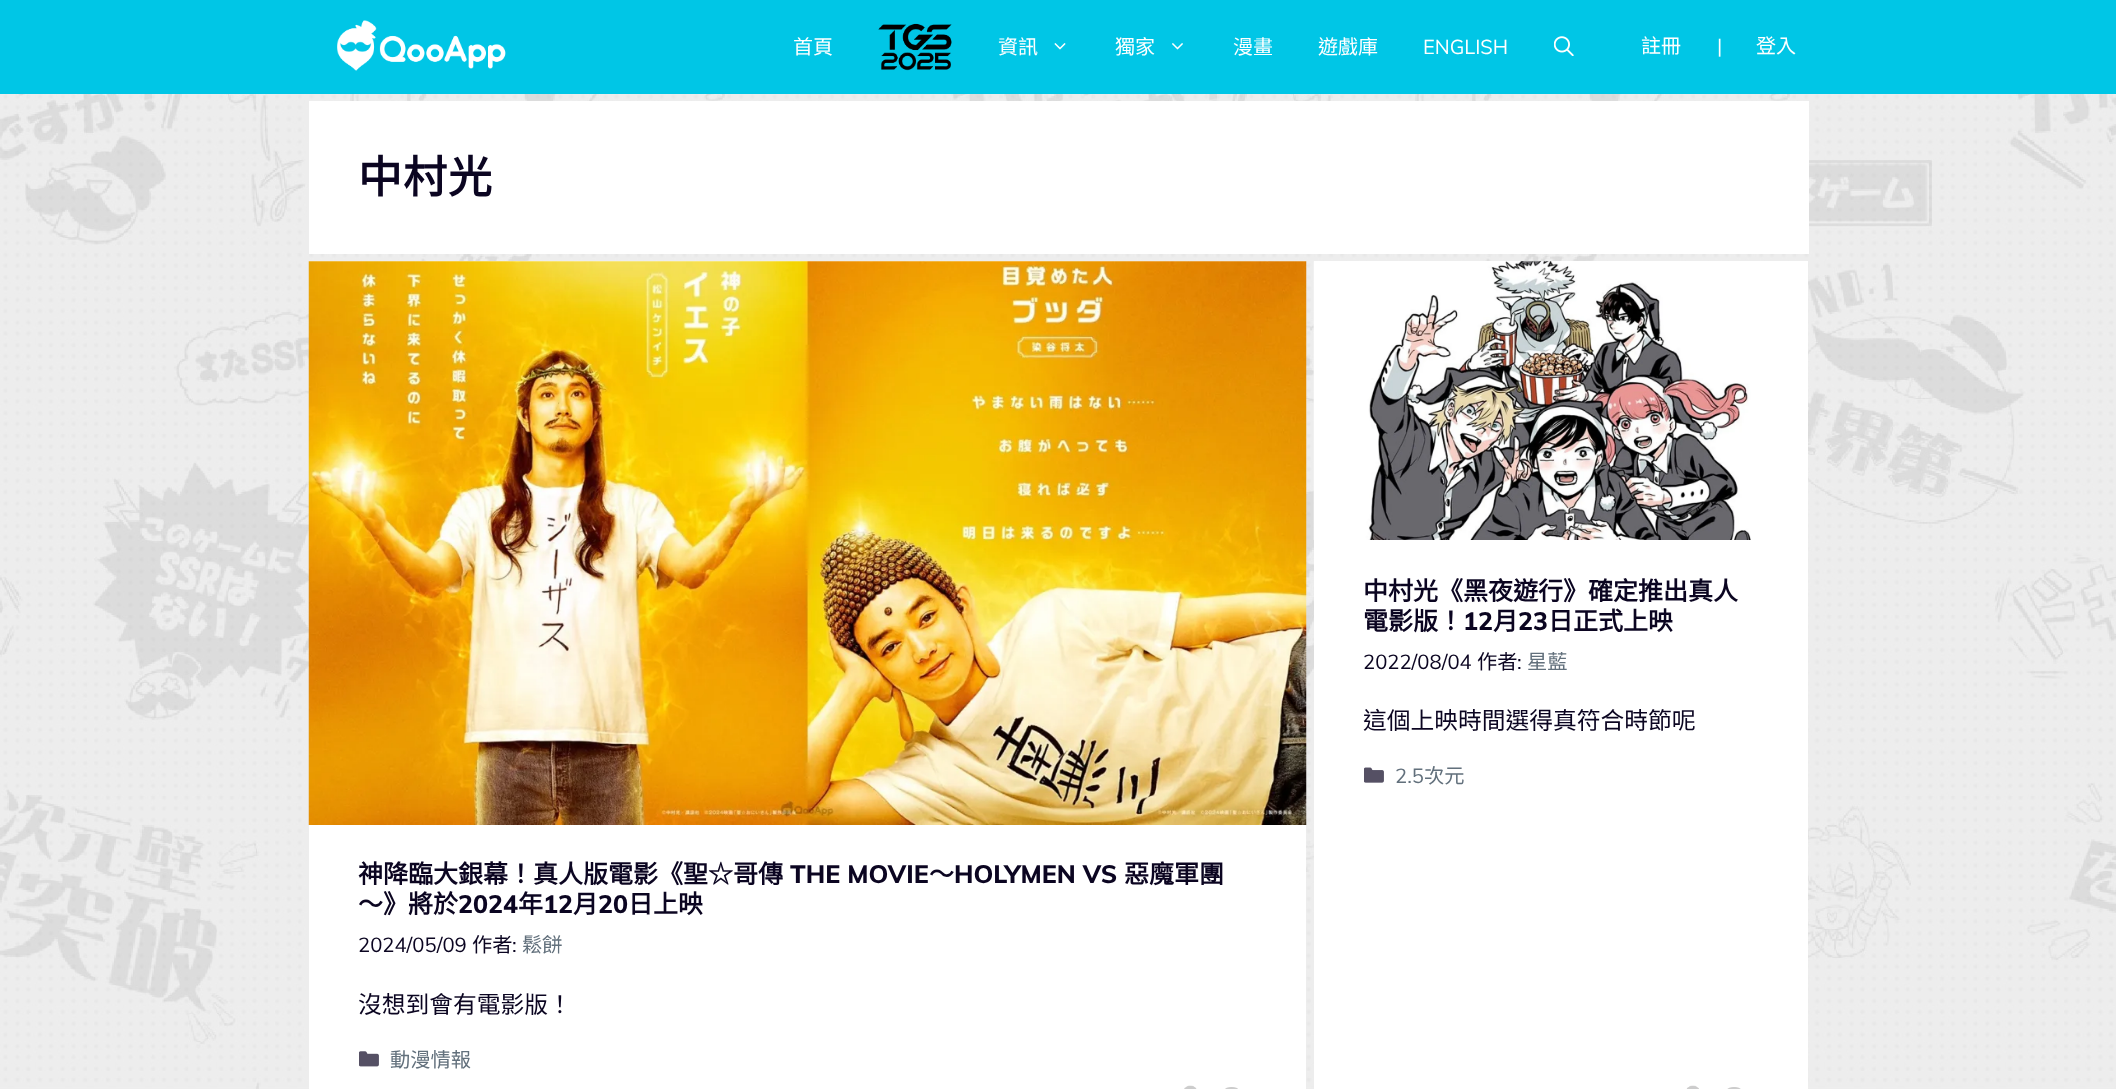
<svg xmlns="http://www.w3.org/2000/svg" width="2116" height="1089">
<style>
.a{font:20px Noto Sans CJK TC;fill:#fff}
.b{font:20px Muli;fill:#fff}
.c{font:bold 44px Noto Sans CJK TC;letter-spacing:1px;fill:#0b0521}
.d{font:bold 25px Noto Sans CJK TC;fill:#0b0521}
.e{font:800 25px Muli;fill:#0b0521}
.f{font:20.25px Muli;fill:#0b0521}
.g{font:20.25px Noto Sans CJK TC;fill:#0b0521}
.h{font:20.25px Noto Sans CJK TC;fill:#62707c}
.i{font:23.75px Noto Sans CJK TC;fill:#0b0521}
.j{font:20.25px Muli;fill:#62707c}
</style>
<rect width="100%" height="100%" fill="#fff"/>
<image href="1.png" x="0" y="94" width="2116" height="995"/>
<path fill="#00c6e6" d="M0 0h2116v94H0z"/>
<image href="2.png" x="337" y="20" width="169" height="51"/>
<image href="3.png" x="878" y="23" width="74" height="48"/>
<image href="4.png" x="1054" y="43" width="12" height="7"/>
<image href="5.png" x="1172" y="43" width="11" height="7"/>
<image href="6.png" x="1554" y="36" width="20" height="20"/>
<path fill="#fff" d="M309 101h1500v153H309z"/>
<path fill="#fff" d="M1314 261h494v828H1314z"/>
<image href="7.png" x="1313" y="261" width="438" height="279"/>
<image href="8.png" x="1686" y="1085" width="13" height="4"/>
<image href="9.png" x="1727" y="1087" width="14" height="2"/>
<image href="10.png" x="1364" y="767" width="20" height="16"/>
<path fill="#fff" d="M309 261h997v828H309z"/>
<image href="11.png" x="308" y="261" width="999" height="564"/>
<image href="12.png" x="1184" y="1085" width="13" height="4"/>
<image href="13.png" x="1225" y="1087" width="13" height="2"/>
<image href="14.png" x="359" y="1051" width="20" height="16"/>
<text class="a" x="793" y="54">首頁</text>
<text class="a" x="998" y="54">資訊</text>
<text class="a" x="1115" y="54">獨家</text>
<text class="a" x="1233" y="54">漫畫</text>
<text class="a" x="1318" y="54">遊戲庫</text>
<text class="b" x="1423" y="54">ENGLISH</text>
<text class="a" x="1641" y="53">註冊</text>
<text class="b" x="1717" y="53">|</text>
<text class="a" x="1756" y="53">登入</text>
<text class="c" x="358" y="193">中村光</text>
<text class="d" x="1363" y="600">中村光《黑夜遊行》確定推出真人</text>
<text class="d" x="1363" y="630">電影版！</text>
<text class="e" x="1463" y="630">12</text>
<text class="d" x="1493" y="630">月</text>
<text class="e" x="1518" y="630">23</text>
<text class="d" x="1548" y="630">日正式上映</text>
<text class="f" x="1363" y="669">2022/08/04</text>
<text class="g" x="1477" y="669">作者</text>
<text class="f" x="1517" y="669">:</text>
<text class="h" x="1527" y="669">星藍</text>
<text class="i" x="1363" y="729">這個上映時間選得真符合時節呢</text>
<text class="j" x="1395" y="783">2.5</text>
<text class="h" x="1424" y="783">次元</text>
<text class="d" x="358" y="883">神降臨大銀幕！真人版電影《聖☆哥傳</text>
<text class="e" x="790" y="883">THE MOVIE</text>
<text class="d" x="929" y="883">～</text>
<text class="e" x="954" y="883">HOLYMEN VS</text>
<text class="d" x="1124" y="883">惡魔軍團</text>
<text class="d" x="358" y="913">～》將於</text>
<text class="e" x="458" y="913">2024</text>
<text class="d" x="518" y="913">年</text>
<text class="e" x="543" y="913">12</text>
<text class="d" x="573" y="913">月</text>
<text class="e" x="598" y="913">20</text>
<text class="d" x="628" y="913">日上映</text>
<text class="f" x="358" y="952">2024/05/09</text>
<text class="g" x="472" y="952">作者</text>
<text class="f" x="512" y="952">:</text>
<text class="h" x="522" y="952">鬆餅</text>
<text class="i" x="358" y="1013">沒想到會有電影版！</text>
<text class="h" x="390" y="1067">動漫情報</text>
</svg>
